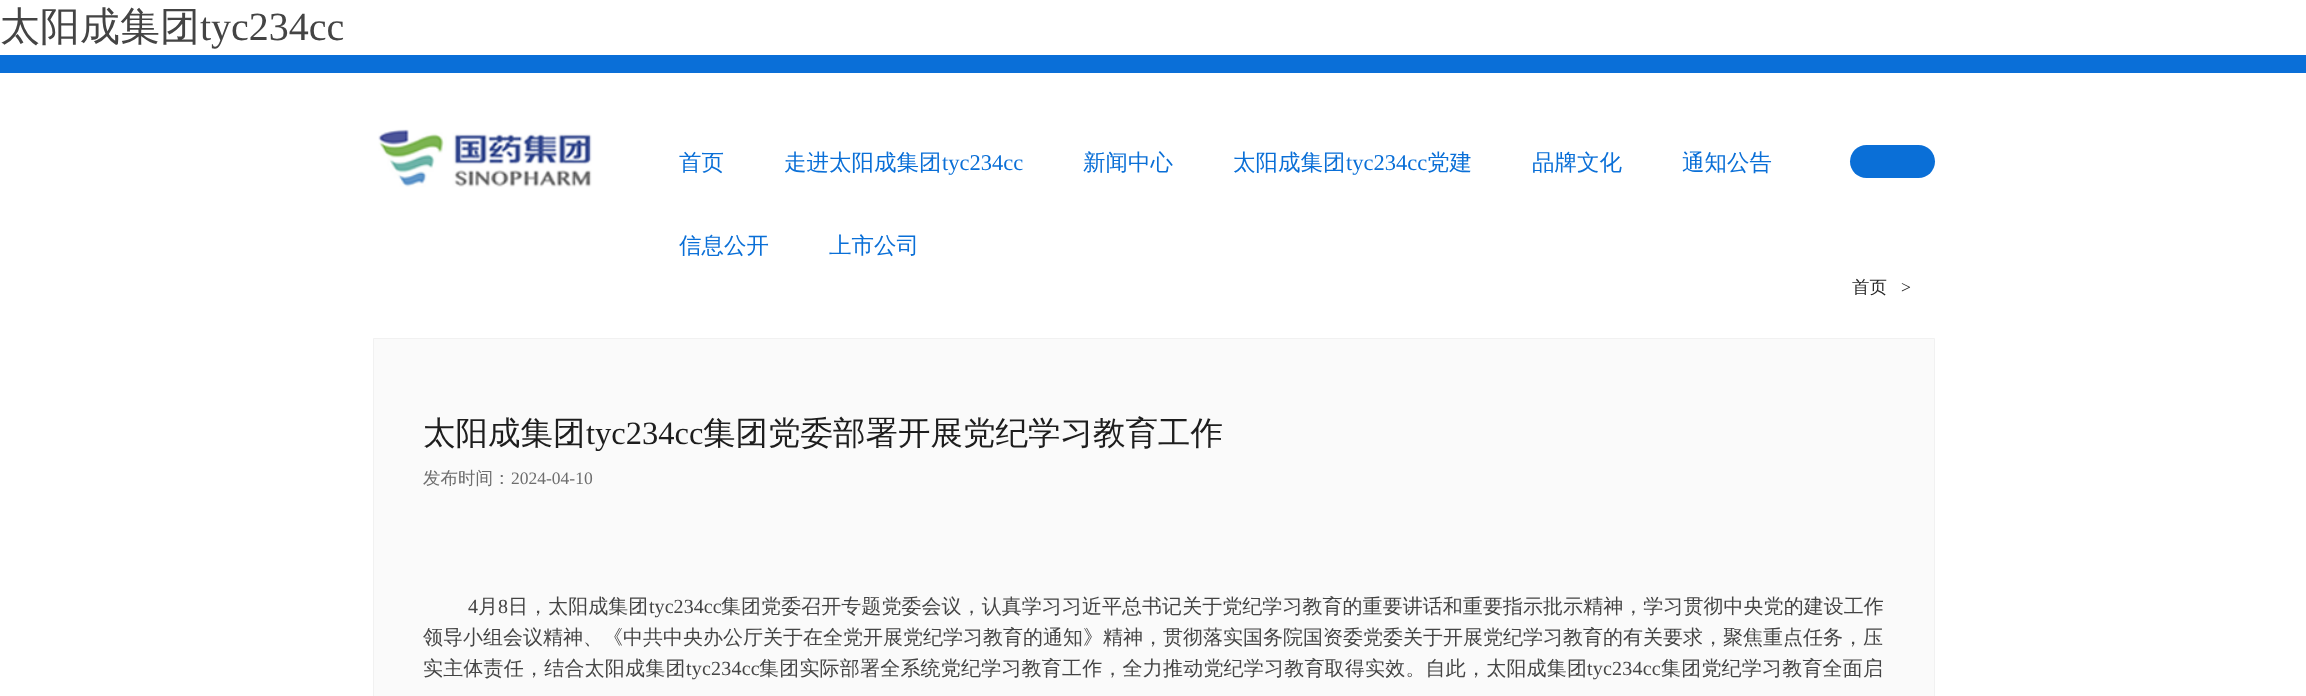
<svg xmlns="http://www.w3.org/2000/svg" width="2306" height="696">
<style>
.a{font:500 40px WenQuanYi Zen Hei;fill:#444}
.b{font:40px Liberation Serif;fill:#444}
.c{font:500 22.5px WenQuanYi Zen Hei;fill:#0a6fd7}
.d{font:22.5px Liberation Serif;fill:#0a6fd7}
.e{font:500 17.5px WenQuanYi Zen Hei;fill:#252525}
.f{font:17.5px Liberation Serif;fill:#252525}
.g{font:500 32.5px WenQuanYi Zen Hei;fill:#1d1d1d}
.h{font:32.5px Liberation Serif;fill:#1d1d1d}
.i{font:500 17.5px WenQuanYi Zen Hei;fill:#6d6d6d}
.j{font:17.5px Liberation Serif;fill:#6d6d6d}
.k{font:20px Liberation Serif;letter-spacing:0.05px;fill:#444}
.l{font:500 20px WenQuanYi Zen Hei;letter-spacing:0.05px;fill:#444}
.m{font:500 20px WenQuanYi Zen Hei;fill:#444}
.n{font:500 20px WenQuanYi Zen Hei;letter-spacing:0.2px;fill:#444}
.o{font:20px Liberation Serif;letter-spacing:0.2px;fill:#444}
</style>
<rect width="100%" height="100%" fill="#fff"/>
<path fill="#0a6fd8" d="M0 55h2306v18H0z"/>
<image href="1.png" x="378" y="129" width="214" height="58"/>
<rect fill="#0a6fd7" x="1850" y="145" width="85" height="33" rx="16.5"/>
<path fill="#fafafa" stroke="#f1f1f1" d="M373.5 338.5h1561v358H373.5z"/>
<text class="a" x="0" y="40">太阳成集团</text>
<text class="b" x="200" y="40">tyc234cc</text>
<text class="c" x="679" y="170">首页</text>
<text class="c" x="784" y="170">走进太阳成集团</text>
<text class="d" x="942" y="170">tyc234cc</text>
<text class="c" x="1083" y="170">新闻中心</text>
<text class="c" x="1233" y="170">太阳成集团</text>
<text class="d" x="1346" y="170">tyc234cc</text>
<text class="c" x="1427" y="170">党建</text>
<text class="c" x="1532" y="170">品牌文化</text>
<text class="c" x="1682" y="170">通知公告</text>
<text class="c" x="679" y="253">信息公开</text>
<text class="c" x="829" y="253">上市公司</text>
<text class="e" x="1852" y="293">首页</text>
<text class="f" x="1901" y="293">&gt;</text>
<text class="g" x="423" y="444">太阳成集团</text>
<text class="h" x="586" y="444">tyc234cc</text>
<text class="g" x="703" y="444">集团党委部署开展党纪学习教育工作</text>
<text class="i" x="423" y="484">发布时间：</text>
<text class="j" x="511" y="484">2024-04-10</text>
<text class="k" x="468" y="613">4</text>
<text class="l" x="478" y="613">月</text>
<text class="k" x="498" y="613">8</text>
<text class="l" x="508" y="613">日，太阳成集团</text>
<text class="k" x="649" y="613">tyc234cc</text>
<text class="l" x="721" y="613">集团党委召开专题党委会议，认真学习习近平总书记关于党纪学习教育的重要讲话和重要指示批示精神，学习贯彻中央党的建设工作</text>
<text class="m" x="423" y="644">领导小组会议精神、《中共中央办公厅关于在全党开展党纪学习教育的通知》精神，贯彻落实国务院国资委党委关于开展党纪学习教育的有关要求，聚焦重点任务，压</text>
<text class="n" x="423" y="675">实主体责任，结合太阳成集团</text>
<text class="o" x="686" y="675">tyc234cc</text>
<text class="n" x="759" y="675">集团实际部署全系统党纪学习教育工作，全力推动党纪学习教育取得实效。自此，太阳成集团</text>
<text class="o" x="1587" y="675">tyc234cc</text>
<text class="n" x="1661" y="675">集团党纪学习教育全面启</text>
</svg>
